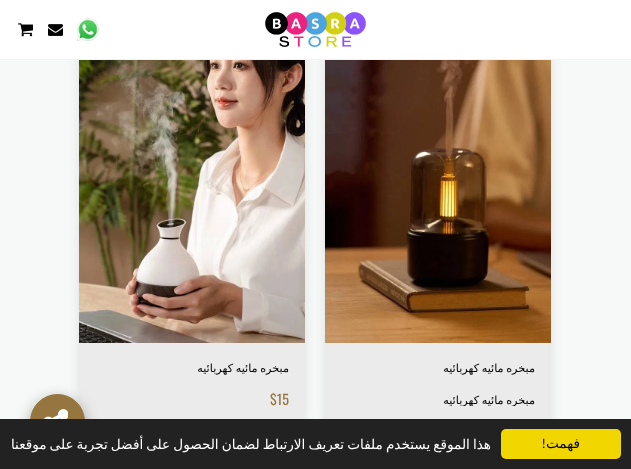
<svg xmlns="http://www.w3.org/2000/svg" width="631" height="469">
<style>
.a{font:11.25px DejaVu Sans;direction:rtl;fill:#000}
.b{font:14px Oswald;fill:#94763e}
.c{font:13.6px DejaVu Sans;direction:rtl;fill:#000}
.d{font:13.6px Carlito;direction:rtl;fill:#000}
.e{font:13.6px DejaVu Sans;direction:rtl;fill:#fff}
</style>
<defs>
<clipPath id="clip1"><path d="M341 392h194v14H341z"/></clipPath>
</defs>
<rect width="100%" height="100%" fill="#f7f9f8"/>
<rect fill="#81818133" filter="blur(6px)" x="325" y="45" width="226" height="407" rx="8"/>
<rect fill="#81818133" filter="blur(6px)" x="79" y="45" width="226" height="381" rx="8"/>
<rect fill="#ebebeb" x="79" y="41" width="226" height="381" rx="8"/>
<path fill="#fff" d="M0 0h631v59H0z"/>
<path fill="#f2f0fc" d="M0 59h631v1H0z"/>
<image href="1.png" x="265" y="12" width="101" height="35"/>
<image href="2.png" x="77" y="18" width="22" height="23"/>
<image href="3.png" x="48" y="24" width="15" height="12"/>
<image href="4.png" x="18" y="23" width="15" height="14"/>
<path fill="#ebebeb" d="M327 343h222v76H327z"/>
<image href="5.png" x="325" y="60" width="226" height="283"/>
<image href="6.png" x="79" y="60" width="226" height="283"/>
<rect fill="#00000059" filter="blur(7.5px)" x="30" y="399" width="55" height="55" rx="27.5"/>
<circle fill="#94763e" stroke="#94763e" cx="57.5" cy="421.5" r="27"/>
<image href="7.png" x="44" y="409" width="24" height="10"/>
<path fill="#222" d="M0 419h631v50H0z"/>
<rect fill="#f1d600" x="501" y="429" width="120" height="30" rx="5"/>
<text class="a" x="535" y="372" word-spacing="-1">مبخره مائيه كهربائيه</text>
<g clip-path="url(#clip1)">
<text class="a" x="535" y="404" word-spacing="-1">مبخره مائيه كهربائيه</text>
</g>
<text class="a" x="289" y="372" word-spacing="-1">مبخره مائيه كهربائيه</text>
<text class="b" x="270" y="405">$15</text>
<text class="c" x="580" y="448">فهمت</text>
<text class="d" x="546" y="448">!</text>
<text class="e" x="491" y="449" word-spacing="-1.25">هذا الموقع يستخدم ملفات تعريف الارتباط لضمان الحصول على أفضل تجربة على موقعنا</text>
</svg>
